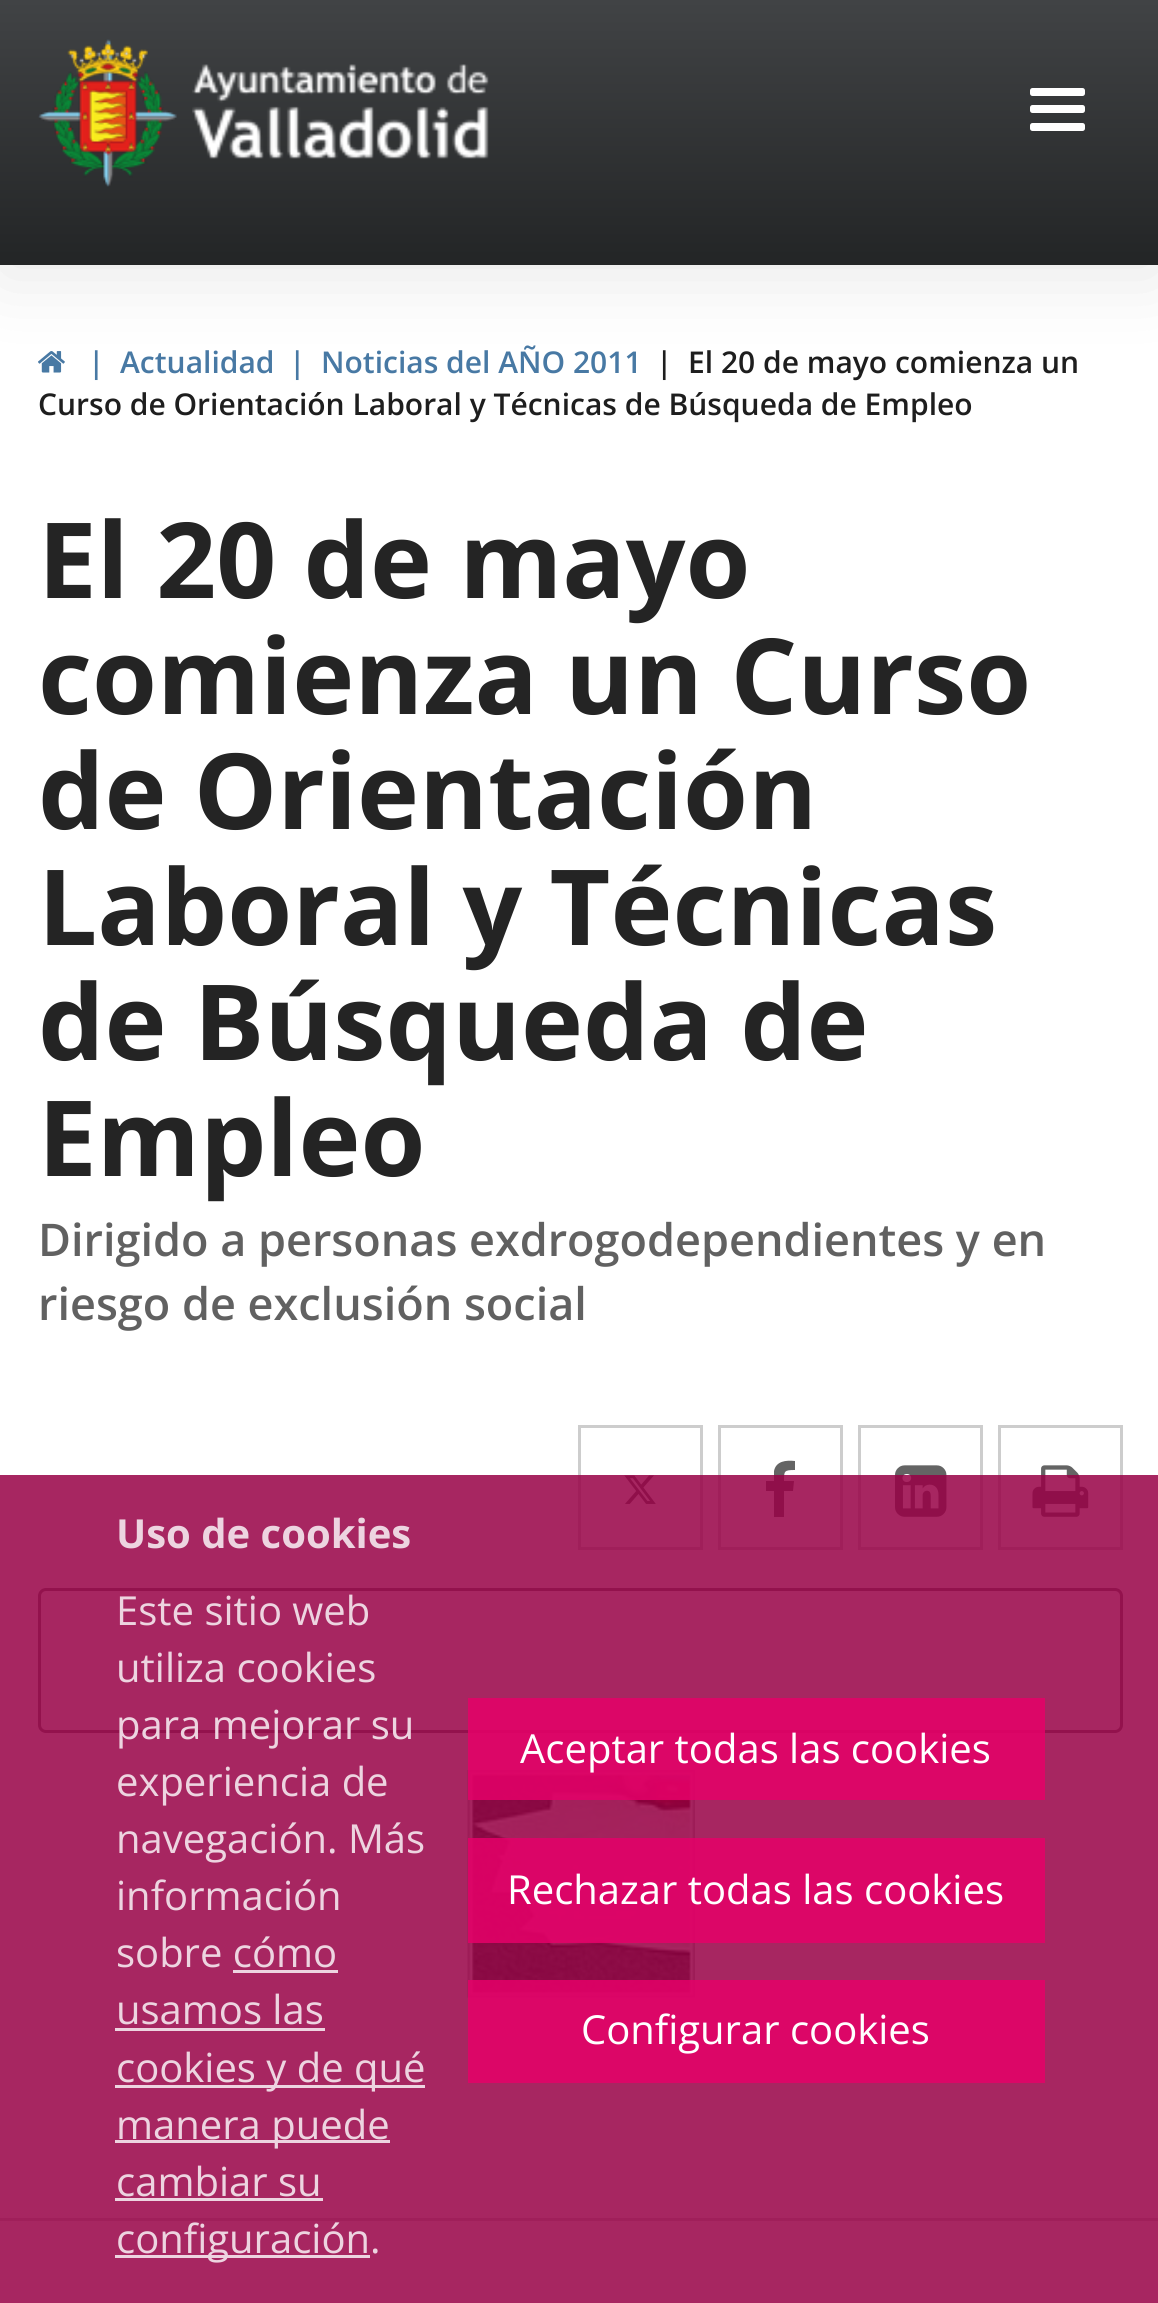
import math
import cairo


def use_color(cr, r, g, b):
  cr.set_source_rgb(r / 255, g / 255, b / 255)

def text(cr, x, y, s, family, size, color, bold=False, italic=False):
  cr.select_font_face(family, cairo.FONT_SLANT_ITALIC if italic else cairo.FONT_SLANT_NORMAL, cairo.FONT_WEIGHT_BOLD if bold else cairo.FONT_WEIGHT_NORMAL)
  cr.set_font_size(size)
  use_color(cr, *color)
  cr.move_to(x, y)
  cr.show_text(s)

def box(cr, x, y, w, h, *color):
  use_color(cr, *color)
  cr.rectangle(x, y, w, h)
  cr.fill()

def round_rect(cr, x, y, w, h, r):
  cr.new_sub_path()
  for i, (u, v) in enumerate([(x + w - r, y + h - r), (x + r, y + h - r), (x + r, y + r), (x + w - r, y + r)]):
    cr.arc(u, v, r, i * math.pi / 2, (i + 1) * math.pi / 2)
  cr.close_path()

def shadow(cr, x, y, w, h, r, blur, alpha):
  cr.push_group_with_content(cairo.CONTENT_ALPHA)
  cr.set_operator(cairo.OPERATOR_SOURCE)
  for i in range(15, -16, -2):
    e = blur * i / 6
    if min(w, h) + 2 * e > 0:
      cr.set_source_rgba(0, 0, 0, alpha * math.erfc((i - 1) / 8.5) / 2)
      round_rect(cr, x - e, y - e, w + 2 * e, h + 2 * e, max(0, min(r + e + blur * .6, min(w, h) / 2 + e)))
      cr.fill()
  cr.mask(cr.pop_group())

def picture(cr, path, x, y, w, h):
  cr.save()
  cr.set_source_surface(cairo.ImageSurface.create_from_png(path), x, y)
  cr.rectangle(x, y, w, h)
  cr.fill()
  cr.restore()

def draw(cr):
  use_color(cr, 255, 255, 255)
  cr.paint()
  use_color(cr, 0, 0, 0)
  shadow(cr, 0, 10, 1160, 265, 0, 37.5, 0.1)
  gradient = cairo.LinearGradient(580, 265, 580, 0)
  gradient.add_color_stop_rgba(0, 0.137, 0.145, 0.149, 1)
  gradient.add_color_stop_rgba(1, 0.255, 0.263, 0.271, 1)
  cr.set_source(gradient)
  cr.rectangle(0, 0, 1158, 265)
  cr.fill()
  picture(cr, "img_01.png", 38, 39, 139, 148)
  picture(cr, "img_02.png", 192, 64, 297, 95)
  use_color(cr, 255, 255, 255)
  round_rect(cr, 1030, 88, 55, 8, 2.5)
  cr.fill()
  round_rect(cr, 1030, 105, 55, 8, 2.5)
  cr.fill()
  round_rect(cr, 1030, 123, 55, 8, 2.5)
  cr.fill()
  picture(cr, "img_03.png", 38, 351, 27, 22)
  cr.rectangle(579.5, 1426.5, 122, 122)
  use_color(cr, 205, 205, 205)
  cr.set_line_width(3)
  cr.stroke()
  picture(cr, "img_04.png", 624, 1475, 32, 29)
  cr.rectangle(719.5, 1426.5, 122, 122)
  cr.stroke()
  use_color(cr, 100, 100, 100)
  cr.new_path()
  cr.move_to(795, 1461)
  cr.line_to(795, 1470)
  cr.curve_to(784, 1470, 784, 1471, 784, 1481)
  cr.line_to(794, 1481)
  cr.line_to(793, 1491)
  cr.line_to(784, 1491)
  cr.line_to(784, 1517)
  cr.line_to(774, 1517)
  cr.line_to(774, 1491)
  cr.line_to(766, 1491)
  cr.line_to(766, 1481)
  cr.line_to(774, 1481)
  cr.line_to(774, 1471)
  cr.curve_to(776, 1461, 786, 1460, 795, 1461)
  cr.close_path()
  cr.fill()
  cr.rectangle(859.5, 1426.5, 122, 122)
  use_color(cr, 205, 205, 205)
  cr.stroke()
  picture(cr, "img_05.png", 895, 1465, 52, 52)
  cr.rectangle(999.5, 1426.5, 122, 122)
  cr.stroke()
  picture(cr, "img_06.png", 1032, 1465, 57, 52)
  round_rect(cr, 39.5, 1589.5, 1082, 142, 6.5)
  use_color(cr, 118, 118, 119)
  cr.stroke()
  picture(cr, "img_07.png", 467, 1770, 228, 228)
  box(cr, 0, 2218, 1158, 3, 210, 210, 210)
  cr.set_source_rgba(0.596, 0, 0.275, 0.85)
  cr.rectangle(0, 1475, 1158, 828)
  cr.fill()
  box(cr, 233, 1970, 105, 3, 237, 212, 224)
  box(cr, 115, 2028, 210, 3, 237, 212, 224)
  box(cr, 115, 2085, 310, 3, 237, 212, 224)
  box(cr, 115, 2140, 275, 3, 237, 212, 224)
  box(cr, 115, 2198, 208, 3, 237, 212, 224)
  box(cr, 115, 2255, 255, 3, 237, 212, 224)
  cr.set_source_rgba(0.898, 0, 0.412, 0.85)
  cr.rectangle(468, 1698, 577, 102)
  cr.fill()
  cr.rectangle(468, 1838, 577, 105)
  cr.fill()
  cr.rectangle(468, 1980, 577, 103)
  cr.fill()
  text(cr, 88, 373, "|", "Open Sans SemiBold", 30, (72, 121, 164))
  text(cr, 120, 373, "Actualidad", "Open Sans SemiBold", 30, (72, 121, 164))
  text(cr, 289, 373, "|", "Open Sans SemiBold", 30, (72, 121, 164))
  text(cr, 321, 373, "Noticias del AÑO 2011", "Open Sans SemiBold", 30, (72, 121, 164))
  text(cr, 656, 373, "|", "Open Sans SemiBold", 30, (30, 30, 30))
  text(cr, 688, 373, "El 20 de mayo comienza un", "Open Sans SemiBold", 30, (30, 30, 30))
  text(cr, 38, 415, "Curso de Orientación Laboral y Técnicas de Búsqueda de Empleo", "Open Sans SemiBold", 30, (30, 30, 30))
  text(cr, 38, 598, "El 20 de mayo", "Open Sans", 105, (36, 36, 36), bold=True)
  text(cr, 38, 714, "comienza un Curso", "Open Sans", 105, (36, 36, 36), bold=True)
  text(cr, 38, 829, "de Orientación", "Open Sans", 105, (36, 36, 36), bold=True)
  text(cr, 38, 945, "Laboral y Técnicas", "Open Sans", 105, (36, 36, 36), bold=True)
  text(cr, 38, 1060, "de Búsqueda de", "Open Sans", 105, (36, 36, 36), bold=True)
  text(cr, 38, 1176, "Empleo", "Open Sans", 105, (36, 36, 36), bold=True)
  text(cr, 38, 1256, "Dirigido a personas exdrogodependientes y en", "Open Sans SemiBold", 45, (97, 97, 97))
  text(cr, 38, 1320, "riesgo de exclusión social", "Open Sans SemiBold", 45, (97, 97, 97))
  text(cr, 116, 1548, "Uso de cookies", "Open Sans", 40, (237, 212, 224), bold=True)
  text(cr, 116, 1625, "Este sitio web", "Open Sans", 40, (237, 212, 224))
  text(cr, 116, 1682, "utiliza cookies", "Open Sans", 40, (237, 212, 224))
  text(cr, 116, 1739, "para mejorar su", "Open Sans", 40, (237, 212, 224))
  text(cr, 116, 1796, "experiencia de", "Open Sans", 40, (237, 212, 224))
  text(cr, 116, 1853, "navegación. Más", "Open Sans", 40, (237, 212, 224))
  text(cr, 116, 1910, "información", "Open Sans", 40, (237, 212, 224))
  text(cr, 116, 1967, "sobre cómo", "Open Sans", 40, (237, 212, 224))
  text(cr, 116, 2024, "usamos las", "Open Sans", 40, (237, 212, 224))
  text(cr, 116, 2082, "cookies y de qué", "Open Sans", 40, (237, 212, 224))
  text(cr, 116, 2139, "manera puede", "Open Sans", 40, (237, 212, 224))
  text(cr, 116, 2196, "cambiar su", "Open Sans", 40, (237, 212, 224))
  text(cr, 116, 2253, "configuración", "Open Sans", 40, (237, 212, 224))
  text(cr, 370, 2253, ".", "Open Sans", 40, (237, 212, 224))
  text(cr, 520, 1763, "Aceptar todas las cookies", "Open Sans", 40, (255, 255, 255))
  text(cr, 507, 1904, "Rechazar todas las cookies", "Open Sans", 40, (255, 255, 255))
  text(cr, 581, 2044, "Configurar cookies", "Open Sans", 40, (255, 255, 255))


surface = cairo.ImageSurface(cairo.FORMAT_RGB24, 1158, 2303)
cr = cairo.Context(surface)
options = cairo.FontOptions()
options.set_hint_metrics(cairo.HINT_METRICS_OFF)
options.set_hint_style(cairo.HINT_STYLE_NONE)
cr.set_font_options(options)
cr.set_miter_limit(4)
draw(cr)
surface.write_to_png("out.png")
